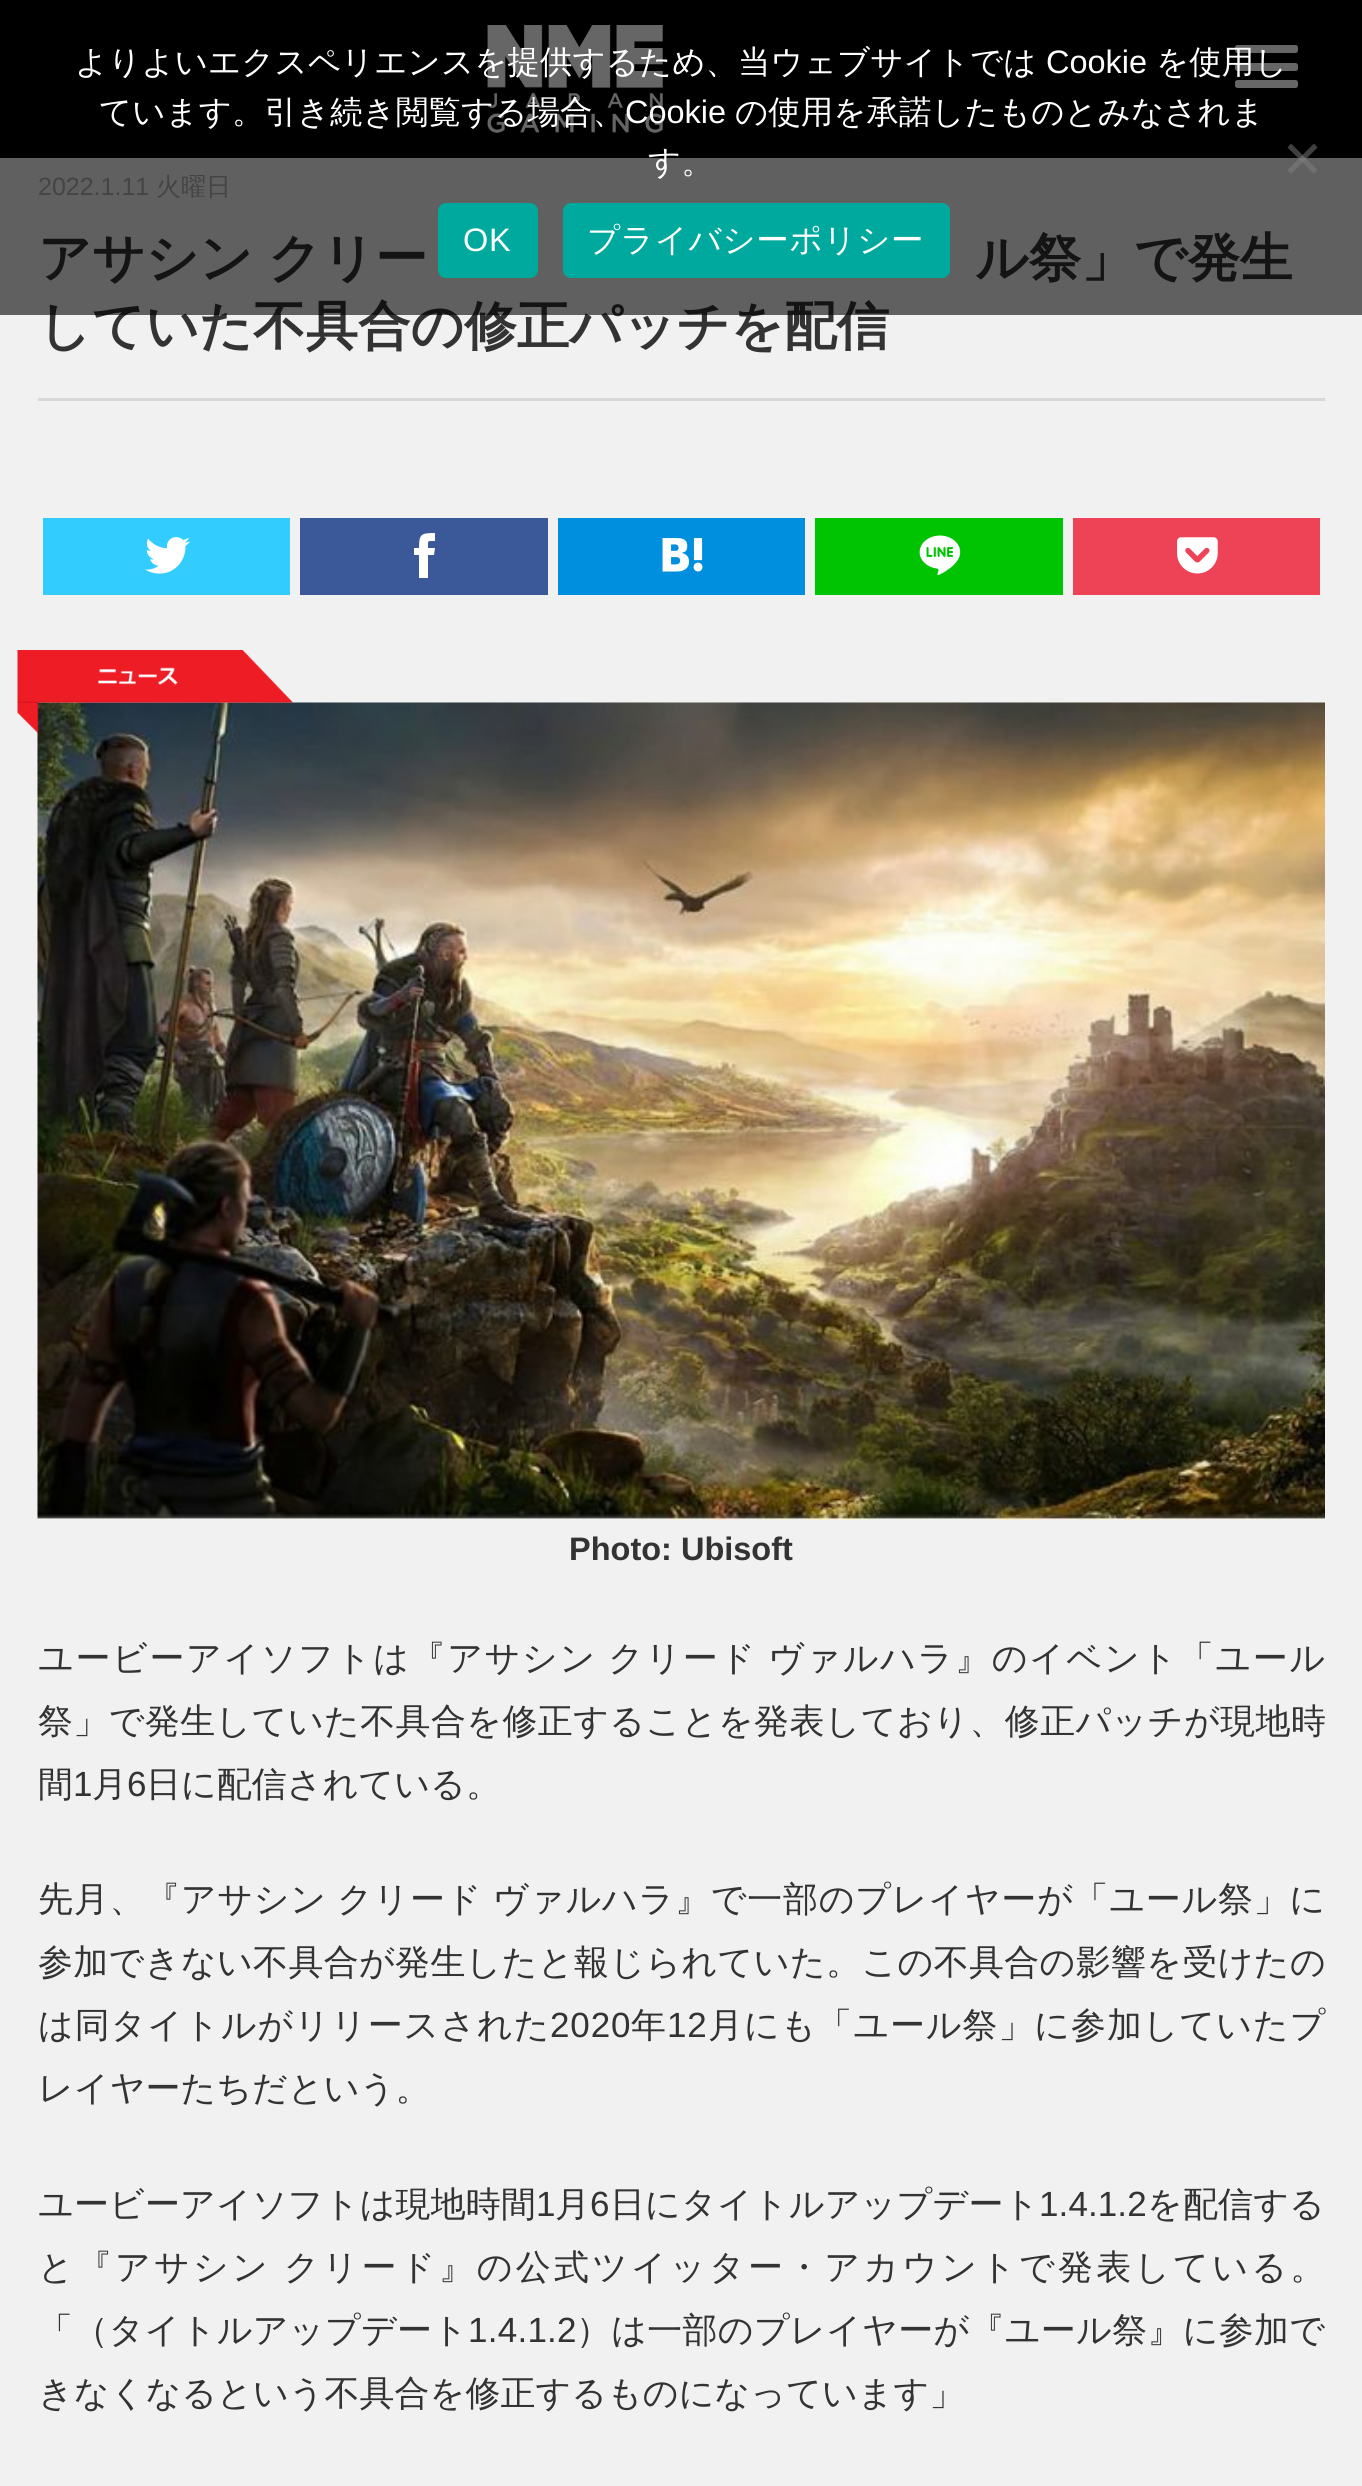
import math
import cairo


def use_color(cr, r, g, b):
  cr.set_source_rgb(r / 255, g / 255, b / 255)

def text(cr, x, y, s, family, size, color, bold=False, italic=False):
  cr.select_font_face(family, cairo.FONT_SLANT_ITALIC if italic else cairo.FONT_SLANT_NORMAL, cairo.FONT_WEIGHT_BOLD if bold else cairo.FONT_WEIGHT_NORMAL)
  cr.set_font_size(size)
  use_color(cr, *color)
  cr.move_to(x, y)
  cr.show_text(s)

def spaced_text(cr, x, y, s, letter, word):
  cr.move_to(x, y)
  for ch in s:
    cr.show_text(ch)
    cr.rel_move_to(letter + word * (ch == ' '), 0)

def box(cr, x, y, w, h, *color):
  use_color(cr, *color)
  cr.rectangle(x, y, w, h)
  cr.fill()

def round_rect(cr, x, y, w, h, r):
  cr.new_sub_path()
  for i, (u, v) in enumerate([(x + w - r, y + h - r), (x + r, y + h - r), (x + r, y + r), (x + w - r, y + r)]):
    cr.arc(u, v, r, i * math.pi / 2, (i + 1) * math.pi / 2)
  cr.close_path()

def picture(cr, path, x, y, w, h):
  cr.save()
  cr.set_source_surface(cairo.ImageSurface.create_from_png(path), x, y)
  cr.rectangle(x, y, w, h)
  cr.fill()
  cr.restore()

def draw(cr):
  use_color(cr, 241, 241, 241)
  cr.paint()
  box(cr, 0, 0, 1362, 158, 0, 0, 0)
  use_color(cr, 255, 255, 255)
  round_rect(cr, 1235, 45, 63, 8, 2.5)
  cr.fill()
  round_rect(cr, 1235, 63, 63, 8, 2.5)
  cr.fill()
  round_rect(cr, 1235, 80, 63, 8, 2.5)
  cr.fill()
  picture(cr, "img_01.png", 487, 25, 176, 108)
  box(cr, 38, 398, 1287, 3, 216, 216, 216)
  box(cr, 43, 518, 247, 77, 51, 204, 255)
  picture(cr, "img_02.png", 145, 537, 45, 37)
  box(cr, 300, 518, 248, 77, 59, 89, 152)
  use_color(cr, 255, 255, 255)
  cr.new_path()
  cr.move_to(428, 578)
  cr.line_to(419, 578)
  cr.line_to(419, 555)
  cr.line_to(414, 555)
  cr.line_to(414, 548)
  cr.line_to(419, 548)
  cr.curve_to(419, 534, 421, 533, 435, 533)
  cr.line_to(435, 541)
  cr.curve_to(427, 541, 428, 540, 428, 548)
  cr.line_to(435, 548)
  cr.line_to(434, 555)
  cr.line_to(428, 555)
  cr.close_path()
  cr.fill()
  box(cr, 558, 518, 247, 77, 0, 143, 222)
  picture(cr, "img_03.png", 662, 538, 41, 34)
  box(cr, 815, 518, 248, 77, 0, 196, 2)
  picture(cr, "img_04.png", 919, 535, 42, 40)
  box(cr, 1073, 518, 247, 77, 238, 66, 87)
  picture(cr, "img_05.png", 1177, 537, 41, 37)
  picture(cr, "img_07.png", 37, 702, 1288, 818)
  picture(cr, "img_06.png", 17, 650, 276, 83)
  text(cr, 38, 195, "2022.1.11", "Liberation Sans", 25, (170, 170, 170))
  text(cr, 156, 195, "火曜日", "WenQuanYi Zen Hei Medium", 25, (170, 170, 170))
  cr.select_font_face("WenQuanYi Zen Hei", cairo.FONT_SLANT_NORMAL, cairo.FONT_WEIGHT_BOLD)
  cr.set_font_size(52.5)
  use_color(cr, 51, 51, 51)
  spaced_text(cr, 38, 276, "アサシン クリー", 0, -1)
  spaced_text(cr, 975, 276, "ル祭」で発生", 0, -1)
  text(cr, 38, 344, "していた不具合の修正パッチを配信", "WenQuanYi Zen Hei", 52.5, (51, 51, 51), bold=True)
  cr.set_source_rgba(0, 0, 0, 0.6)
  cr.rectangle(0, 25, 1362, 290)
  cr.fill()
  cr.set_source_rgba(0.502, 0.502, 0.502, 0.5)
  cr.new_path()
  cr.move_to(1314, 143.5)
  cr.line_to(1317.5, 147.5)
  cr.line_to(1291, 174)
  cr.line_to(1287.5, 170)
  cr.close_path()
  cr.fill()
  cr.new_path()
  cr.move_to(1287.5, 147.5)
  cr.line_to(1291, 143.5)
  cr.line_to(1317.5, 170)
  cr.line_to(1314, 174)
  cr.close_path()
  cr.fill()
  use_color(cr, 0, 169, 157)
  round_rect(cr, 563, 203, 387, 75, 8)
  cr.fill()
  cr.select_font_face("WenQuanYi Zen Hei Medium")
  cr.set_font_size(32.5)
  use_color(cr, 255, 255, 255)
  spaced_text(cr, 587, 251, "プライバシーポリシー", 0.6, 0)
  use_color(cr, 0, 169, 157)
  round_rect(cr, 438, 203, 100, 75, 8)
  cr.fill()
  cr.select_font_face("Liberation Sans")
  use_color(cr, 255, 255, 255)
  spaced_text(cr, 463, 251, "OK", 0.6, 0)
  text(cr, 648, 173, "す。", "WenQuanYi Zen Hei Medium", 32.5, (255, 255, 255))
  text(cr, 735, 123, "の使用を承諾したものとみなされま", "WenQuanYi Zen Hei Medium", 32.5, (255, 255, 255))
  text(cr, 625, 123, "Cookie", "Liberation Sans", 32.5, (255, 255, 255))
  text(cr, 99, 123, "ています。引き続き閲覧する場合、", "WenQuanYi Zen Hei Medium", 32.5, (255, 255, 255))
  text(cr, 1156, 73, "を使用し", "WenQuanYi Zen Hei Medium", 32.5, (255, 255, 255))
  text(cr, 1046, 73, "Cookie", "Liberation Sans", 32.5, (255, 255, 255))
  text(cr, 75, 73, "よりよいエクスペリエンスを提供するため、当ウェブサイトでは", "WenQuanYi Zen Hei Medium", 32.5, (255, 255, 255))
  text(cr, 569, 1560, "Photo: Ubisoft", "Liberation Sans", 32.5, (51, 51, 51), bold=True)
  cr.select_font_face("WenQuanYi Zen Hei Medium")
  cr.set_font_size(35)
  spaced_text(cr, 38, 1670, "ユービーアイソフトは『アサシン クリード ヴァルハラ』のイベント「ユール", 1.6, -1)
  spaced_text(cr, 38, 1733, "祭」で発生していた不具合を修正することを発表しており、修正パッチが現地時", 0.35, 0)
  text(cr, 38, 1796, "間", "WenQuanYi Zen Hei Medium", 35, (51, 51, 51))
  text(cr, 73, 1796, "1", "Liberation Sans", 35, (51, 51, 51))
  text(cr, 92, 1796, "月", "WenQuanYi Zen Hei Medium", 35, (51, 51, 51))
  text(cr, 127, 1796, "6", "Liberation Sans", 35, (51, 51, 51))
  text(cr, 146, 1796, "日に配信されている。", "WenQuanYi Zen Hei Medium", 35, (51, 51, 51))
  spaced_text(cr, 38, 1911, "先月、『アサシン クリード ヴァルハラ』で一部のプレイヤーが「ユール祭」に", 0.7, -1)
  spaced_text(cr, 38, 1974, "参加できない不具合が発生したと報じられていた。この不具合の影響を受けたの", 0.3, 0)
  spaced_text(cr, 38, 2037, "は同タイトルがリリースされた", 0.9, 0)
  cr.select_font_face("Liberation Sans")
  spaced_text(cr, 550, 2037, "2020", 0.9, 0)
  cr.select_font_face("WenQuanYi Zen Hei Medium")
  spaced_text(cr, 631, 2037, "年", 0.9, 0)
  cr.select_font_face("Liberation Sans")
  spaced_text(cr, 667, 2037, "12", 0.9, 0)
  cr.select_font_face("WenQuanYi Zen Hei Medium")
  spaced_text(cr, 708, 2037, "月にも「ユール祭」に参加していたプ", 0.9, 0)
  text(cr, 38, 2100, "レイヤーたちだという。", "WenQuanYi Zen Hei Medium", 35, (51, 51, 51))
  spaced_text(cr, 38, 2216, "ユービーアイソフトは現地時間", 0.1, 0)
  cr.select_font_face("Liberation Sans")
  spaced_text(cr, 536, 2216, "1", 0.1, 0)
  cr.select_font_face("WenQuanYi Zen Hei Medium")
  spaced_text(cr, 555, 2216, "月", 0.1, 0)
  cr.select_font_face("Liberation Sans")
  spaced_text(cr, 590, 2216, "6", 0.1, 0)
  cr.select_font_face("WenQuanYi Zen Hei Medium")
  spaced_text(cr, 610, 2216, "日にタイトルアップデート", 0.1, 0)
  cr.select_font_face("Liberation Sans")
  spaced_text(cr, 1039, 2216, "1.4.1.2", 0.1, 0)
  cr.select_font_face("WenQuanYi Zen Hei Medium")
  spaced_text(cr, 1147, 2216, "を配信する", 0.1, 0)
  spaced_text(cr, 38, 2279, "と『アサシン クリード』の公式ツイッター・アカウントで発表している。", 3.15, -1)
  spaced_text(cr, 38, 2342, "「（タイトルアップデート", 0.25, 0)
  cr.select_font_face("Liberation Sans")
  spaced_text(cr, 468, 2342, "1.4.1.2", 0.25, 0)
  cr.select_font_face("WenQuanYi Zen Hei Medium")
  spaced_text(cr, 576, 2342, "）は一部のプレイヤーが『ユール祭』に参加で", 0.25, 0)
  text(cr, 38, 2405, "きなくなるという不具合を修正するものになっています」", "WenQuanYi Zen Hei Medium", 35, (51, 51, 51))


surface = cairo.ImageSurface(cairo.FORMAT_RGB24, 1362, 2486)
cr = cairo.Context(surface)
options = cairo.FontOptions()
options.set_hint_metrics(cairo.HINT_METRICS_OFF)
options.set_hint_style(cairo.HINT_STYLE_NONE)
cr.set_font_options(options)
cr.set_miter_limit(4)
draw(cr)
surface.write_to_png("out.png")
